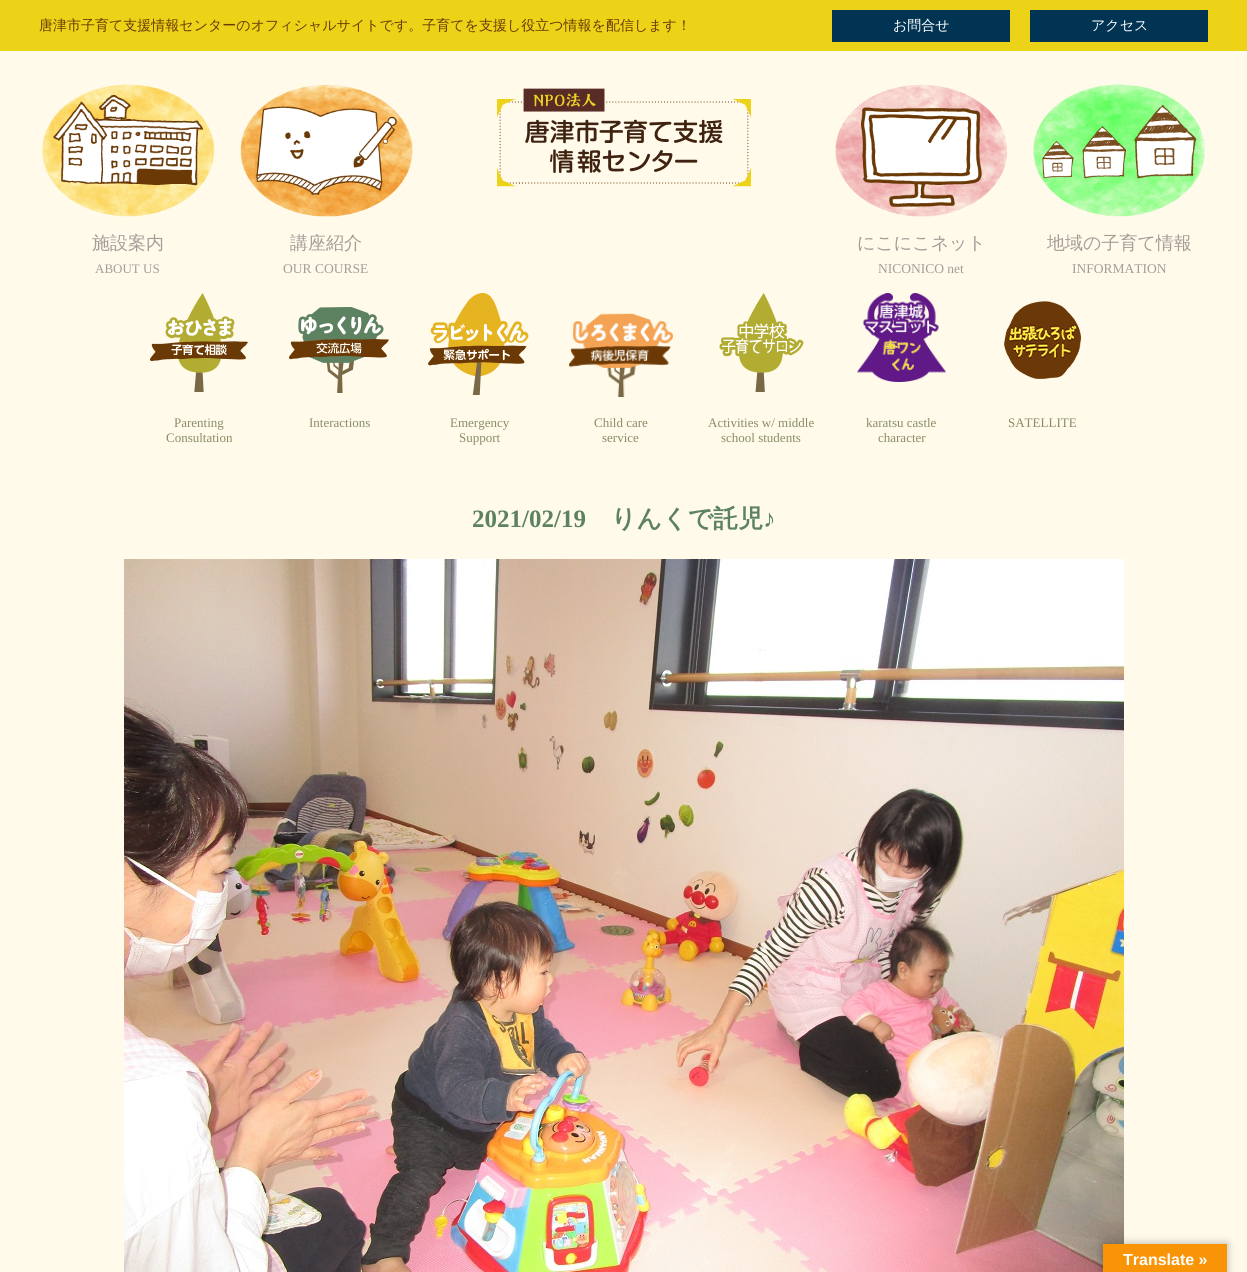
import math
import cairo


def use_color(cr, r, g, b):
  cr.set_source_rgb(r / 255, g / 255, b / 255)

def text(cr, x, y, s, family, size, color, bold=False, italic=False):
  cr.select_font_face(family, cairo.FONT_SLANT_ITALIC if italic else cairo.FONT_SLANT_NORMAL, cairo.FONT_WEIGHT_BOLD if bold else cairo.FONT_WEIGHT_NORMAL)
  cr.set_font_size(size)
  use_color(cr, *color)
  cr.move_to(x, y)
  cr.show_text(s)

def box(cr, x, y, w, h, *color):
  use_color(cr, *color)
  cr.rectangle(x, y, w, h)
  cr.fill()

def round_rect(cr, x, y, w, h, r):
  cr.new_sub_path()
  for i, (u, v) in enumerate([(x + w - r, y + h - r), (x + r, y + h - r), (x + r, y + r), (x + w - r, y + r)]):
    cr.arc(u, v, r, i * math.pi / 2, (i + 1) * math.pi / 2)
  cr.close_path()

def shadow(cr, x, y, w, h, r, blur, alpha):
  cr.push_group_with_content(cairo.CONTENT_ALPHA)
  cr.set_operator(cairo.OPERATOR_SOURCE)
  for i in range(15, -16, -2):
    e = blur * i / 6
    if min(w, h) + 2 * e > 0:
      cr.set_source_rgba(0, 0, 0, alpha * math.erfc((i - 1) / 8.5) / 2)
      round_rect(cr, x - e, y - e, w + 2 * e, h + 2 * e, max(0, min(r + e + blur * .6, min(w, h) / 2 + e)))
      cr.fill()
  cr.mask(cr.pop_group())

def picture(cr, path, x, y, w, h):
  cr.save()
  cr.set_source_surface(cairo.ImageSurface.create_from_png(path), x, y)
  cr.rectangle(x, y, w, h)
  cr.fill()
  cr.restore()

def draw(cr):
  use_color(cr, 255, 250, 234)
  cr.paint()
  box(cr, 0, 0, 1247, 51, 236, 211, 24)
  box(cr, 832, 10, 178, 32, 1, 52, 83)
  box(cr, 1030, 10, 178, 32, 1, 52, 83)
  picture(cr, "img_01.png", 497, 88, 254, 99)
  picture(cr, "img_02.png", 42, 84, 173, 133)
  picture(cr, "img_03.png", 240, 84, 173, 133)
  picture(cr, "img_04.png", 835, 84, 173, 133)
  picture(cr, "img_05.png", 1033, 84, 173, 133)
  picture(cr, "img_06.png", 150, 293, 98, 99)
  picture(cr, "img_07.png", 289, 307, 100, 86)
  picture(cr, "img_08.png", 428, 293, 101, 102)
  picture(cr, "img_09.png", 569, 313, 104, 84)
  picture(cr, "img_10.png", 719, 293, 85, 99)
  picture(cr, "img_11.png", 857, 293, 89, 89)
  picture(cr, "img_12.png", 1004, 301, 77, 78)
  picture(cr, "img_13.png", 124, 559, 1000, 713)
  use_color(cr, 0, 0, 0)
  shadow(cr, 1103, 1244, 124, 28, 0, 4.5, 0.3)
  box(cr, 1103, 1244, 124, 28, 248, 148, 6)
  text(cr, 39, 30, "唐津市子育て支援情報センターのオフィシャルサイトです。子育てを支援し役立つ情報を配信します！", "WenQuanYi Zen Hei Medium", 14, (106, 57, 6))
  text(cr, 893, 30, "お問合せ", "WenQuanYi Zen Hei Medium", 14, (255, 255, 255))
  text(cr, 1091, 30, "アクセス", "WenQuanYi Zen Hei Medium", 14, (255, 255, 255))
  text(cr, 92, 249, "施設案内", "WenQuanYi Zen Hei Medium", 18, (165, 156, 152))
  text(cr, 95, 273, "ABOUT US", "Liberation Serif", 13, (165, 156, 152))
  text(cr, 290, 249, "講座紹介", "WenQuanYi Zen Hei Medium", 18, (165, 156, 152))
  text(cr, 283, 273, "OUR COURSE", "Liberation Serif", 13.5, (165, 156, 152))
  text(cr, 857, 249, "にこにこネット", "WenQuanYi Zen Hei Medium", 18, (165, 156, 152))
  text(cr, 878, 273, "NICONICO net", "Liberation Serif", 13.5, (165, 156, 152))
  text(cr, 1047, 249, "地域の子育て情報", "WenQuanYi Zen Hei Medium", 18, (165, 156, 152))
  text(cr, 1072, 273, "INFORMATION", "Liberation Serif", 13.5, (165, 156, 152))
  text(cr, 174, 427, "Parenting", "Liberation Serif", 13, (135, 142, 102))
  text(cr, 166, 442, "Consultation", "Liberation Serif", 13, (135, 142, 102))
  text(cr, 309, 427, "Interactions", "Liberation Serif", 13, (135, 142, 102))
  text(cr, 450, 427, "Emergency", "Liberation Serif", 13, (135, 142, 102))
  text(cr, 459, 442, "Support", "Liberation Serif", 13, (135, 142, 102))
  text(cr, 594, 427, "Child care", "Liberation Serif", 13, (135, 142, 102))
  text(cr, 602, 442, "service", "Liberation Serif", 13, (135, 142, 102))
  text(cr, 708, 427, "Activities w/ middle", "Liberation Serif", 13, (135, 142, 102))
  text(cr, 721, 442, "school students", "Liberation Serif", 13, (135, 142, 102))
  text(cr, 866, 427, "karatsu castle", "Liberation Serif", 13, (135, 142, 102))
  text(cr, 878, 442, "character", "Liberation Serif", 13, (135, 142, 102))
  text(cr, 1008, 427, "SATELLITE", "Liberation Serif", 13, (135, 142, 102))
  text(cr, 472, 527, "2021/02/19", "Liberation Serif", 25, (92, 130, 97), bold=True)
  text(cr, 611, 527, "りんくで託児", "WenQuanYi Zen Hei", 25, (92, 130, 97), bold=True)
  text(cr, 763, 527, "♪", "Liberation Serif", 25, (92, 130, 97), bold=True)
  text(cr, 1123, 1265, "Translate »", "Liberation Sans", 16, (255, 255, 255), bold=True)


surface = cairo.ImageSurface(cairo.FORMAT_RGB24, 1247, 1272)
cr = cairo.Context(surface)
options = cairo.FontOptions()
options.set_hint_metrics(cairo.HINT_METRICS_OFF)
options.set_hint_style(cairo.HINT_STYLE_NONE)
cr.set_font_options(options)
cr.set_miter_limit(4)
draw(cr)
surface.write_to_png("out.png")
